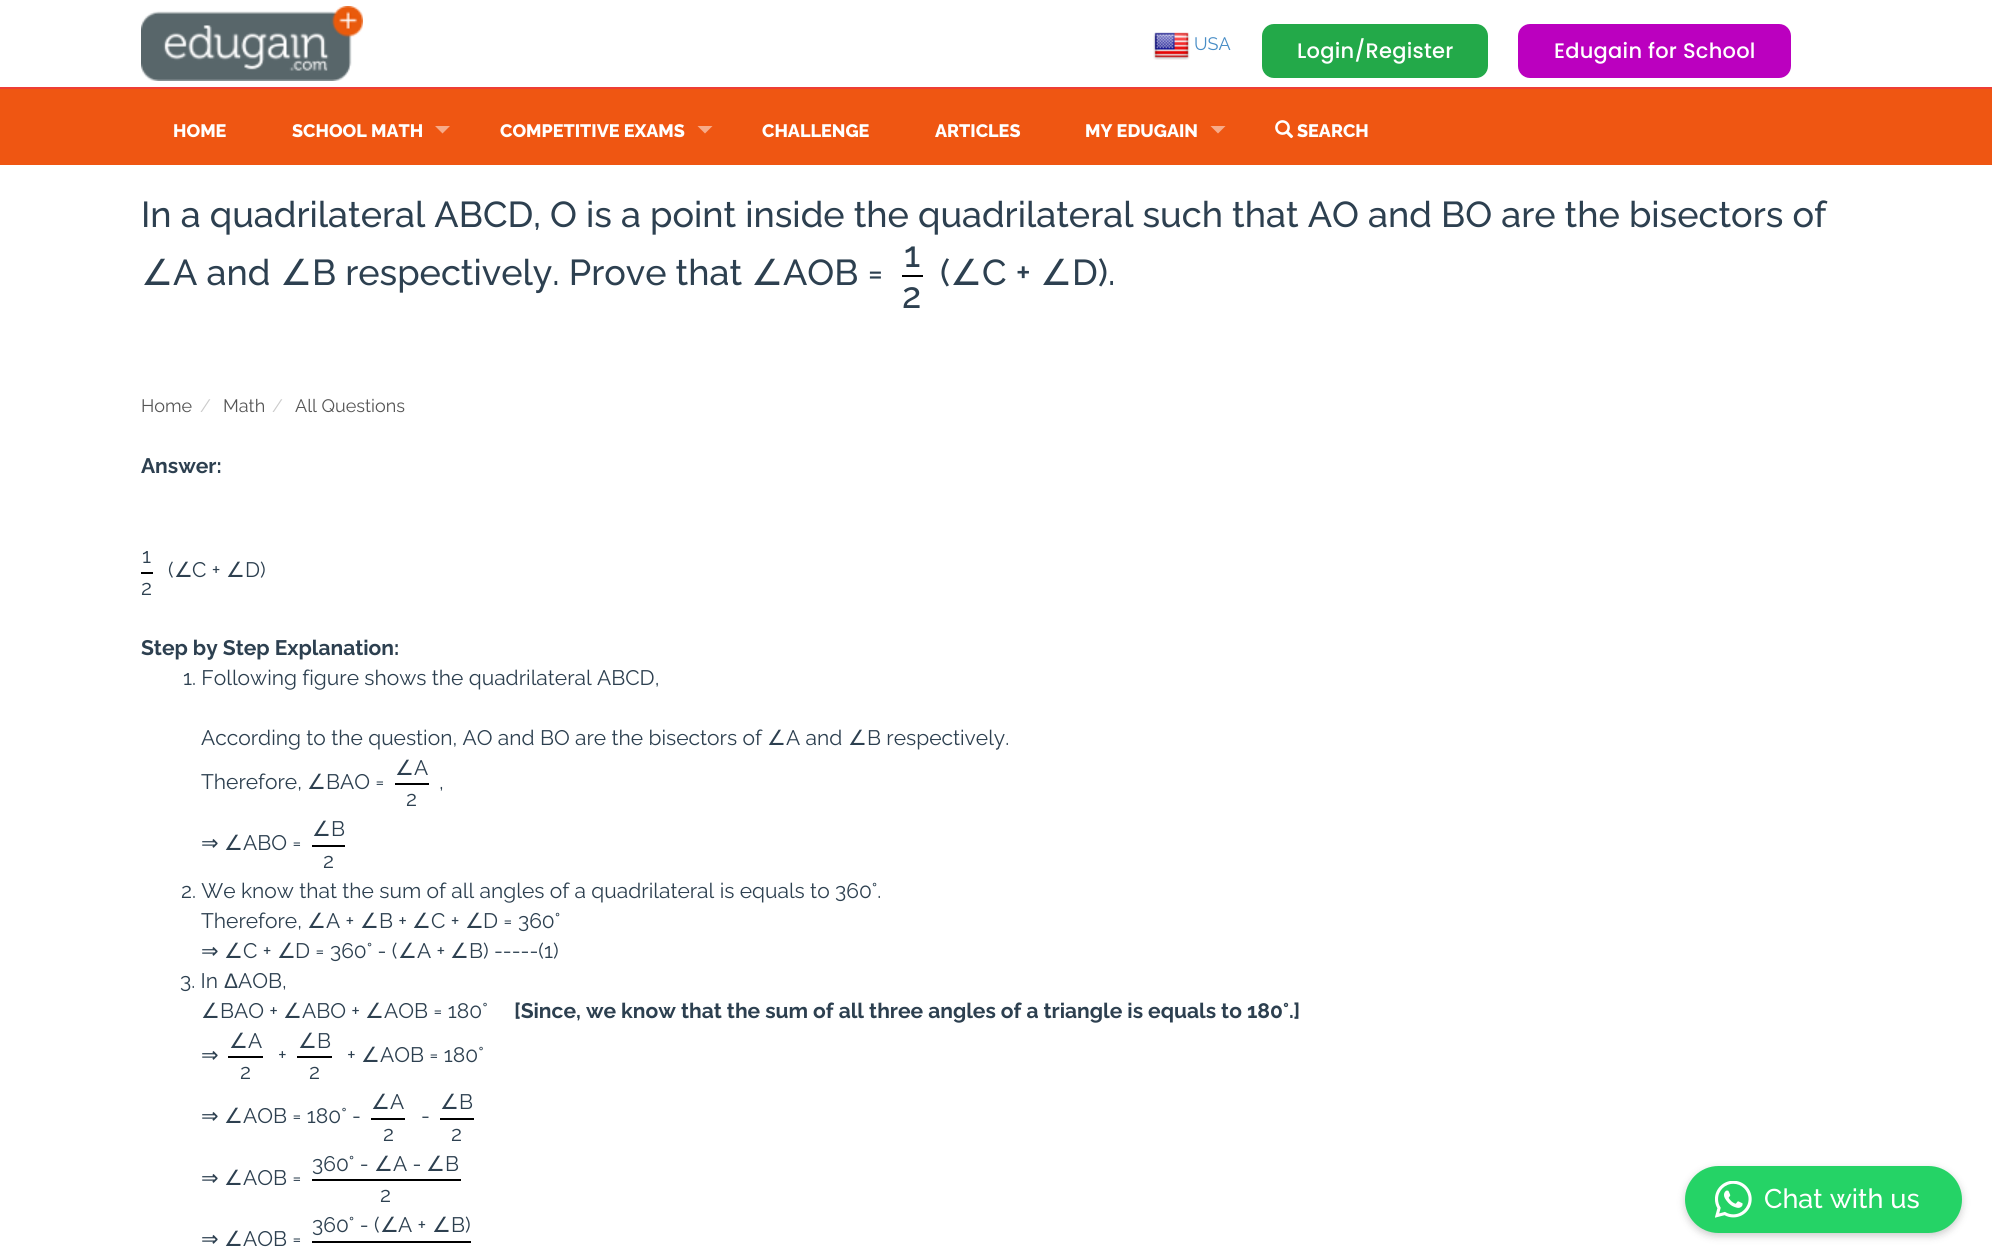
import math
import cairo


def use_color(cr, r, g, b):
  cr.set_source_rgb(r / 255, g / 255, b / 255)

def text(cr, x, y, s, family, size, color, bold=False, italic=False):
  cr.select_font_face(family, cairo.FONT_SLANT_ITALIC if italic else cairo.FONT_SLANT_NORMAL, cairo.FONT_WEIGHT_BOLD if bold else cairo.FONT_WEIGHT_NORMAL)
  cr.set_font_size(size)
  use_color(cr, *color)
  cr.move_to(x, y)
  cr.show_text(s)

def spaced_text(cr, x, y, s, letter, word):
  cr.move_to(x, y)
  for ch in s:
    cr.show_text(ch)
    cr.rel_move_to(letter + word * (ch == ' '), 0)

def box(cr, x, y, w, h, *color):
  use_color(cr, *color)
  cr.rectangle(x, y, w, h)
  cr.fill()

def round_rect(cr, x, y, w, h, r):
  cr.new_sub_path()
  for i, (u, v) in enumerate([(x + w - r, y + h - r), (x + r, y + h - r), (x + r, y + r), (x + w - r, y + r)]):
    cr.arc(u, v, r, i * math.pi / 2, (i + 1) * math.pi / 2)
  cr.close_path()

def shadow(cr, x, y, w, h, r, blur, alpha):
  cr.push_group_with_content(cairo.CONTENT_ALPHA)
  cr.set_operator(cairo.OPERATOR_SOURCE)
  for i in range(15, -16, -2):
    e = blur * i / 6
    if min(w, h) + 2 * e > 0:
      cr.set_source_rgba(0, 0, 0, alpha * math.erfc((i - 1) / 8.5) / 2)
      round_rect(cr, x - e, y - e, w + 2 * e, h + 2 * e, max(0, min(r + e + blur * .6, min(w, h) / 2 + e)))
      cr.fill()
  cr.mask(cr.pop_group())

def picture(cr, path, x, y, w, h):
  cr.save()
  cr.set_source_surface(cairo.ImageSurface.create_from_png(path), x, y)
  cr.rectangle(x, y, w, h)
  cr.fill()
  cr.restore()

def draw(cr):
  use_color(cr, 255, 255, 255)
  cr.paint()
  box(cr, 0, 87, 1992, 2, 238, 62, 53)
  picture(cr, "img_01.png", 141, 6, 222, 75)
  picture(cr, "img_02.png", 1153, 32, 37, 28)
  use_color(cr, 35, 169, 73)
  round_rect(cr, 1262, 24, 226, 54, 12)
  cr.fill()
  use_color(cr, 187, 0, 191)
  round_rect(cr, 1518, 24, 273, 54, 12)
  cr.fill()
  box(cr, 0, 89, 1992, 76, 239, 86, 18)
  use_color(cr, 247, 171, 137)
  cr.new_path()
  cr.move_to(435, 126)
  cr.line_to(450, 126)
  cr.line_to(442.5, 133.5)
  cr.close_path()
  cr.fill()
  cr.new_path()
  cr.move_to(697.5, 126)
  cr.line_to(712.5, 126)
  cr.line_to(705, 133.5)
  cr.close_path()
  cr.fill()
  cr.new_path()
  cr.move_to(1210.5, 126)
  cr.line_to(1225.5, 126)
  cr.line_to(1218, 133.5)
  cr.close_path()
  cr.fill()
  picture(cr, "img_03.png", 1275, 120, 19, 19)
  box(cr, 902, 275, 21, 2, 0, 0, 0)
  box(cr, 141, 572, 12, 2, 0, 0, 0)
  box(cr, 395, 783, 34, 2, 0, 0, 0)
  box(cr, 312, 845, 33, 2, 0, 0, 0)
  box(cr, 228, 1056, 35, 2, 0, 0, 0)
  box(cr, 297, 1056, 35, 2, 0, 0, 0)
  box(cr, 371, 1118, 34, 2, 0, 0, 0)
  box(cr, 440, 1118, 34, 2, 0, 0, 0)
  box(cr, 312, 1179, 149, 2, 0, 0, 0)
  box(cr, 312, 1241, 159, 2, 0, 0, 0)
  use_color(cr, 0, 0, 0)
  shadow(cr, 1685, 1169, 277, 67, 33.5, 4, 0.2)
  use_color(cr, 37, 211, 102)
  round_rect(cr, 1685, 1166, 277, 67, 33.5)
  cr.fill()
  picture(cr, "img_04.png", 1715, 1181, 37, 37)
  text(cr, 1194, 50, "USA", "Raleway", 18, (72, 141, 198))
  cr.select_font_face("Poppins Medium")
  cr.set_font_size(21)
  use_color(cr, 255, 255, 255)
  spaced_text(cr, 1297, 58, "Login/Register", 0.25, 0)
  spaced_text(cr, 1554, 58, "Edugain for School", 0.25, 0)
  text(cr, 173, 137, "HOME", "Raleway ExtraBold", 18, (255, 255, 255))
  text(cr, 292, 137, "SCHOOL MATH", "Raleway ExtraBold", 18, (255, 255, 255))
  text(cr, 500, 137, "COMPETITIVE EXAMS", "Raleway ExtraBold", 18, (255, 255, 255))
  text(cr, 762, 137, "CHALLENGE", "Raleway ExtraBold", 18, (255, 255, 255))
  text(cr, 935, 137, "ARTICLES", "Raleway ExtraBold", 18, (255, 255, 255))
  text(cr, 1085, 137, "MY EDUGAIN", "Raleway ExtraBold", 18, (255, 255, 255))
  text(cr, 1297, 137, "SEARCH", "Raleway ExtraBold", 18, (255, 255, 255))
  text(cr, 141, 227, "In a quadrilateral ABCD, O is a point inside the quadrilateral such that AO and BO are the bisectors of", "Raleway Medium", 36, (45, 64, 80))
  text(cr, 141, 285, "∠", "DejaVu Sans", 36, (45, 64, 80))
  text(cr, 173, 285, "A and", "Raleway Medium", 36, (45, 64, 80))
  text(cr, 280, 285, "∠", "DejaVu Sans", 36, (45, 64, 80))
  text(cr, 312, 285, "B respectively. Prove that", "Raleway Medium", 36, (45, 64, 80))
  text(cr, 751, 285, "∠", "DejaVu Sans", 36, (45, 64, 80))
  text(cr, 783, 285, "AOB =", "Raleway Medium", 36, (45, 64, 80))
  text(cr, 904, 267, "1", "Raleway Medium", 36, (45, 64, 80))
  text(cr, 902, 308, "2", "Raleway Medium", 36, (45, 64, 80))
  text(cr, 940, 285, "(", "Raleway Medium", 36, (45, 64, 80))
  text(cr, 950, 285, "∠", "DejaVu Sans", 36, (45, 64, 80))
  text(cr, 982, 285, "C +", "Raleway Medium", 36, (45, 64, 80))
  text(cr, 1040, 285, "∠", "DejaVu Sans", 36, (45, 64, 80))
  text(cr, 1072, 285, "D).", "Raleway Medium", 36, (45, 64, 80))
  text(cr, 141, 412, "Home", "Raleway", 18, (85, 85, 85))
  text(cr, 200, 412, "/", "Raleway", 18, (204, 204, 204))
  text(cr, 223, 412, "Math", "Raleway", 18, (85, 85, 85))
  text(cr, 272, 412, "/", "Raleway", 18, (204, 204, 204))
  text(cr, 295, 412, "All Questions", "Raleway", 18, (85, 85, 85))
  text(cr, 141, 473, "Answer:", "Raleway", 21, (45, 64, 80), bold=True)
  text(cr, 142, 563, "1", "Raleway", 21, (45, 64, 80))
  text(cr, 141, 595, "2", "Raleway", 21, (45, 64, 80))
  text(cr, 168, 577, "(", "Raleway", 21, (45, 64, 80))
  text(cr, 174, 577, "∠", "DejaVu Sans", 21, (45, 64, 80))
  text(cr, 192, 577, "C +", "Raleway", 21, (45, 64, 80))
  text(cr, 226, 577, "∠", "DejaVu Sans", 21, (45, 64, 80))
  text(cr, 245, 577, "D)", "Raleway", 21, (45, 64, 80))
  text(cr, 141, 655, "Step by Step Explanation:", "Raleway", 21, (45, 64, 80), bold=True)
  text(cr, 183, 685, "1. Following figure shows the quadrilateral ABCD,", "Raleway", 21, (45, 64, 80))
  text(cr, 201, 745, "According to the question, AO and BO are the bisectors of", "Raleway", 21, (45, 64, 80))
  text(cr, 767, 745, "∠", "DejaVu Sans", 21, (45, 64, 80))
  text(cr, 786, 745, "A and", "Raleway", 21, (45, 64, 80))
  text(cr, 848, 745, "∠", "DejaVu Sans", 21, (45, 64, 80))
  text(cr, 867, 745, "B respectively.", "Raleway", 21, (45, 64, 80))
  text(cr, 201, 789, "Therefore,", "Raleway", 21, (45, 64, 80))
  text(cr, 307, 789, "∠", "DejaVu Sans", 21, (45, 64, 80))
  text(cr, 326, 789, "BAO =", "Raleway", 21, (45, 64, 80))
  text(cr, 395, 775, "∠", "DejaVu Sans", 21, (45, 64, 80))
  text(cr, 414, 775, "A", "Raleway", 21, (45, 64, 80))
  text(cr, 406, 806, "2", "Raleway", 21, (45, 64, 80))
  text(cr, 439, 789, ",", "Raleway", 21, (45, 64, 80))
  text(cr, 201, 850, "⇒", "DejaVu Sans", 21, (45, 64, 80))
  text(cr, 224, 850, "∠", "DejaVu Sans", 21, (45, 64, 80))
  text(cr, 243, 850, "ABO =", "Raleway", 21, (45, 64, 80))
  text(cr, 312, 836, "∠", "DejaVu Sans", 21, (45, 64, 80))
  text(cr, 331, 836, "B", "Raleway", 21, (45, 64, 80))
  text(cr, 323, 868, "2", "Raleway", 21, (45, 64, 80))
  text(cr, 181, 898, "2. We know that the sum of all angles of a quadrilateral is equals to 360°.", "Raleway", 21, (45, 64, 80))
  text(cr, 201, 928, "Therefore,", "Raleway", 21, (45, 64, 80))
  text(cr, 307, 928, "∠", "DejaVu Sans", 21, (45, 64, 80))
  text(cr, 326, 928, "A +", "Raleway", 21, (45, 64, 80))
  text(cr, 360, 928, "∠", "DejaVu Sans", 21, (45, 64, 80))
  text(cr, 379, 928, "B +", "Raleway", 21, (45, 64, 80))
  text(cr, 412, 928, "∠", "DejaVu Sans", 21, (45, 64, 80))
  text(cr, 431, 928, "C +", "Raleway", 21, (45, 64, 80))
  text(cr, 465, 928, "∠", "DejaVu Sans", 21, (45, 64, 80))
  text(cr, 483, 928, "D = 360°", "Raleway", 21, (45, 64, 80))
  text(cr, 201, 958, "⇒", "DejaVu Sans", 21, (45, 64, 80))
  text(cr, 224, 958, "∠", "DejaVu Sans", 21, (45, 64, 80))
  text(cr, 243, 958, "C +", "Raleway", 21, (45, 64, 80))
  text(cr, 277, 958, "∠", "DejaVu Sans", 21, (45, 64, 80))
  text(cr, 295, 958, "D = 360° - (", "Raleway", 21, (45, 64, 80))
  text(cr, 398, 958, "∠", "DejaVu Sans", 21, (45, 64, 80))
  text(cr, 417, 958, "A +", "Raleway", 21, (45, 64, 80))
  text(cr, 450, 958, "∠", "DejaVu Sans", 21, (45, 64, 80))
  text(cr, 469, 958, "B) -----(1)", "Raleway", 21, (45, 64, 80))
  text(cr, 180, 988, "3. In", "Raleway", 21, (45, 64, 80))
  text(cr, 224, 988, "Δ", "Liberation Sans", 21, (45, 64, 80))
  text(cr, 238, 988, "AOB,", "Raleway", 21, (45, 64, 80))
  text(cr, 201, 1018, "∠", "DejaVu Sans", 21, (45, 64, 80))
  text(cr, 220, 1018, "BAO +", "Raleway", 21, (45, 64, 80))
  text(cr, 283, 1018, "∠", "DejaVu Sans", 21, (45, 64, 80))
  text(cr, 302, 1018, "ABO +", "Raleway", 21, (45, 64, 80))
  text(cr, 365, 1018, "∠", "DejaVu Sans", 21, (45, 64, 80))
  text(cr, 384, 1018, "AOB = 180°", "Raleway", 21, (45, 64, 80))
  text(cr, 514, 1018, "[Since, we know that the sum of all three angles of a triangle is equals to 180°.]", "Raleway", 21, (45, 64, 80), bold=True)
  text(cr, 201, 1062, "⇒", "DejaVu Sans", 21, (45, 64, 80))
  text(cr, 229, 1048, "∠", "DejaVu Sans", 21, (45, 64, 80))
  text(cr, 248, 1048, "A", "Raleway", 21, (45, 64, 80))
  text(cr, 240, 1079, "2", "Raleway", 21, (45, 64, 80))
  text(cr, 278, 1062, "+", "Raleway", 21, (45, 64, 80))
  text(cr, 298, 1048, "∠", "DejaVu Sans", 21, (45, 64, 80))
  text(cr, 317, 1048, "B", "Raleway", 21, (45, 64, 80))
  text(cr, 309, 1079, "2", "Raleway", 21, (45, 64, 80))
  text(cr, 347, 1062, "+", "Raleway", 21, (45, 64, 80))
  text(cr, 361, 1062, "∠", "DejaVu Sans", 21, (45, 64, 80))
  text(cr, 380, 1062, "AOB = 180°", "Raleway", 21, (45, 64, 80))
  text(cr, 201, 1123, "⇒", "DejaVu Sans", 21, (45, 64, 80))
  text(cr, 224, 1123, "∠", "DejaVu Sans", 21, (45, 64, 80))
  text(cr, 243, 1123, "AOB = 180° -", "Raleway", 21, (45, 64, 80))
  text(cr, 371, 1109, "∠", "DejaVu Sans", 21, (45, 64, 80))
  text(cr, 390, 1109, "A", "Raleway", 21, (45, 64, 80))
  text(cr, 383, 1141, "2", "Raleway", 21, (45, 64, 80))
  text(cr, 421, 1123, "-", "Raleway", 21, (45, 64, 80))
  text(cr, 440, 1109, "∠", "DejaVu Sans", 21, (45, 64, 80))
  text(cr, 459, 1109, "B", "Raleway", 21, (45, 64, 80))
  text(cr, 451, 1141, "2", "Raleway", 21, (45, 64, 80))
  text(cr, 201, 1185, "⇒", "DejaVu Sans", 21, (45, 64, 80))
  text(cr, 224, 1185, "∠", "DejaVu Sans", 21, (45, 64, 80))
  text(cr, 243, 1185, "AOB =", "Raleway", 21, (45, 64, 80))
  text(cr, 312, 1171, "360° -", "Raleway", 21, (45, 64, 80))
  text(cr, 374, 1171, "∠", "DejaVu Sans", 21, (45, 64, 80))
  text(cr, 393, 1171, "A -", "Raleway", 21, (45, 64, 80))
  text(cr, 426, 1171, "∠", "DejaVu Sans", 21, (45, 64, 80))
  text(cr, 445, 1171, "B", "Raleway", 21, (45, 64, 80))
  text(cr, 380, 1202, "2", "Raleway", 21, (45, 64, 80))
  text(cr, 312, 1232, "360° - (", "Raleway", 21, (45, 64, 80))
  text(cr, 380, 1232, "∠", "DejaVu Sans", 21, (45, 64, 80))
  text(cr, 398, 1232, "A +", "Raleway", 21, (45, 64, 80))
  text(cr, 432, 1232, "∠", "DejaVu Sans", 21, (45, 64, 80))
  text(cr, 451, 1232, "B)", "Raleway", 21, (45, 64, 80))
  text(cr, 201, 1246, "⇒", "DejaVu Sans", 21, (45, 64, 80))
  text(cr, 224, 1246, "∠", "DejaVu Sans", 21, (45, 64, 80))
  text(cr, 243, 1246, "AOB =", "Raleway", 21, (45, 64, 80))
  text(cr, 1764, 1208, "Chat with us", "Raleway Medium", 27, (255, 255, 255))


surface = cairo.ImageSurface(cairo.FORMAT_RGB24, 1992, 1248)
cr = cairo.Context(surface)
options = cairo.FontOptions()
options.set_hint_metrics(cairo.HINT_METRICS_OFF)
options.set_hint_style(cairo.HINT_STYLE_NONE)
cr.set_font_options(options)
cr.set_miter_limit(4)
draw(cr)
surface.write_to_png("out.png")
